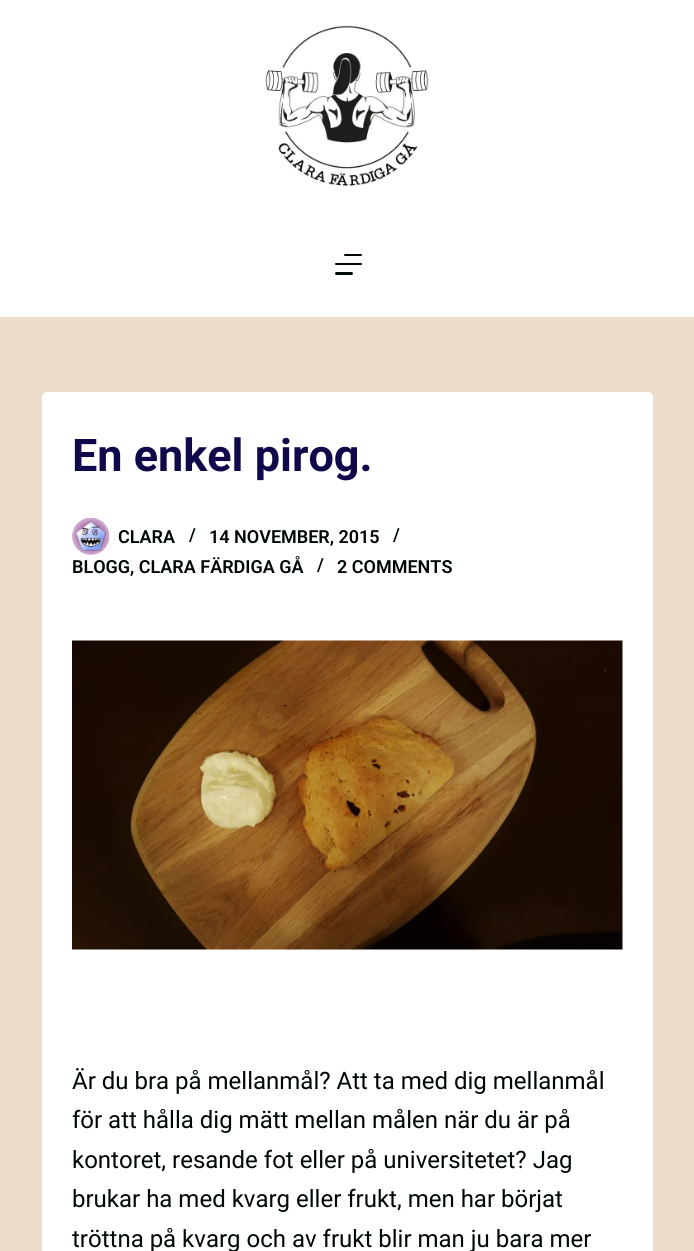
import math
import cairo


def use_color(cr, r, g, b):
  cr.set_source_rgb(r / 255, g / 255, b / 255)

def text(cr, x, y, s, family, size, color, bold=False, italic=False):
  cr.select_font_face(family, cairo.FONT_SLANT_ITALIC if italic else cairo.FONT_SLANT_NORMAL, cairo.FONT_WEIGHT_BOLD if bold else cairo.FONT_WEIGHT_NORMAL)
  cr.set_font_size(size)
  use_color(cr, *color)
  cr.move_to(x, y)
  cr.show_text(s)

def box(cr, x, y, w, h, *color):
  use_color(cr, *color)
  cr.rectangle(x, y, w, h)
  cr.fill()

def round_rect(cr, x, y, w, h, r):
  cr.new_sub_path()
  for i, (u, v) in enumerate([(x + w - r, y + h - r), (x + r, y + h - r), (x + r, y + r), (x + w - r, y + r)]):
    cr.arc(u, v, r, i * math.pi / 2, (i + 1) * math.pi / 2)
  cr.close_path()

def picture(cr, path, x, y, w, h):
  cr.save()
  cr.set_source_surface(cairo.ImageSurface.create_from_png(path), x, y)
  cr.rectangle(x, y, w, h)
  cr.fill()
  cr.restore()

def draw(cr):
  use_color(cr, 235, 220, 203)
  cr.paint()
  box(cr, 0, 0, 694, 317, 255, 255, 255)
  use_color(cr, 0, 8, 7)
  round_rect(cr, 344, 254, 18, 2, 1)
  cr.fill()
  round_rect(cr, 335, 263, 27, 2, 1)
  cr.fill()
  round_rect(cr, 335, 272, 18, 3, 1.5)
  cr.fill()
  picture(cr, "img_01.png", 265, 25, 164, 162)
  use_color(cr, 255, 255, 255)
  round_rect(cr, 42, 392, 611, 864, 5)
  cr.fill()
  picture(cr, "img_02.png", 72, 517, 38, 38)
  picture(cr, "img_03.png", 72, 640, 551, 310)
  text(cr, 72, 471, "En enkel pirog.", "Roboto", 45, (15, 8, 75), bold=True)
  text(cr, 118, 543, "CLARA", "Roboto SemiBold", 18, (0, 8, 7))
  text(cr, 189, 541, "/", "Roboto SemiBold", 18, (0, 8, 7))
  text(cr, 209, 543, "14 NOVEMBER, 2015", "Roboto SemiBold", 18, (0, 8, 7))
  text(cr, 393, 541, "/", "Roboto SemiBold", 18, (0, 8, 7))
  text(cr, 72, 573, "BLOGG, CLARA FÄRDIGA GÅ", "Roboto SemiBold", 18, (0, 8, 7))
  text(cr, 317, 571, "/", "Roboto SemiBold", 18, (0, 8, 7))
  text(cr, 337, 573, "2 COMMENTS", "Roboto SemiBold", 18, (0, 8, 7))
  text(cr, 72, 1089, "Är du bra på mellanmål? Att ta med dig mellanmål", "Roboto", 24, (0, 8, 7))
  text(cr, 72, 1128, "för att hålla dig mätt mellan målen när du är på", "Roboto", 24, (0, 8, 7))
  text(cr, 72, 1168, "kontoret, resande fot eller på universitetet? Jag", "Roboto", 24, (0, 8, 7))
  text(cr, 72, 1207, "brukar ha med kvarg eller frukt, men har börjat", "Roboto", 24, (0, 8, 7))
  text(cr, 72, 1247, "tröttna på kvarg och av frukt blir man ju bara mer", "Roboto", 24, (0, 8, 7))


surface = cairo.ImageSurface(cairo.FORMAT_RGB24, 694, 1251)
cr = cairo.Context(surface)
options = cairo.FontOptions()
options.set_hint_metrics(cairo.HINT_METRICS_OFF)
options.set_hint_style(cairo.HINT_STYLE_NONE)
cr.set_font_options(options)
cr.set_miter_limit(4)
draw(cr)
surface.write_to_png("out.png")
